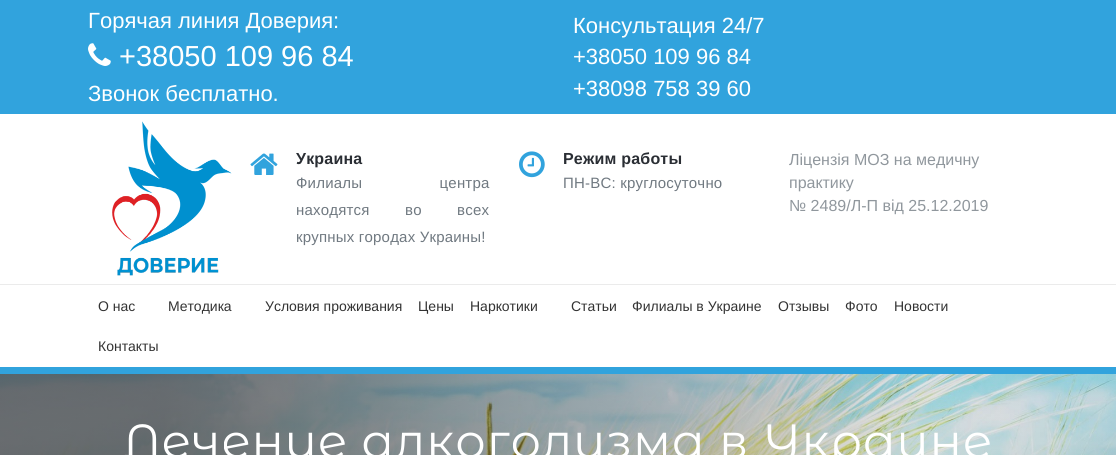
import math
import cairo


def use_color(cr, r, g, b):
  cr.set_source_rgb(r / 255, g / 255, b / 255)

def text(cr, x, y, s, family, size, color, bold=False, italic=False):
  cr.select_font_face(family, cairo.FONT_SLANT_ITALIC if italic else cairo.FONT_SLANT_NORMAL, cairo.FONT_WEIGHT_BOLD if bold else cairo.FONT_WEIGHT_NORMAL)
  cr.set_font_size(size)
  use_color(cr, *color)
  cr.move_to(x, y)
  cr.show_text(s)

def spaced_text(cr, x, y, s, letter, word):
  cr.move_to(x, y)
  for ch in s:
    cr.show_text(ch)
    cr.rel_move_to(letter + word * (ch == ' '), 0)

def box(cr, x, y, w, h, *color):
  use_color(cr, *color)
  cr.rectangle(x, y, w, h)
  cr.fill()

def picture(cr, path, x, y, w, h):
  cr.save()
  cr.set_source_surface(cairo.ImageSurface.create_from_png(path), x, y)
  cr.rectangle(x, y, w, h)
  cr.fill()
  cr.restore()

def draw(cr):
  use_color(cr, 255, 255, 255)
  cr.paint()
  box(cr, 0, 367, 1116, 7, 49, 163, 221)
  box(cr, 0, 0, 1116, 114, 49, 163, 221)
  picture(cr, "img_01.png", 88, 43, 23, 23)
  picture(cr, "img_02.png", 112, 121, 120, 155)
  picture(cr, "img_03.png", 250, 153, 28, 22)
  picture(cr, "img_04.png", 519, 151, 26, 27)
  box(cr, 0, 284, 1116, 1, 235, 235, 235)
  picture(cr, "img_05.png", 0, 374, 1116, 81)
  text(cr, 88, 28, "Горячая линия Доверия:", "Liberation Sans", 22, (255, 255, 255))
  text(cr, 119, 66, "+38050 109 96 84", "Liberation Sans", 29, (255, 255, 255))
  text(cr, 88, 101, "Звонок бесплатно.", "Liberation Sans", 22, (255, 255, 255))
  text(cr, 573, 33, "Консультация 24/7", "Liberation Sans", 22, (255, 255, 255))
  text(cr, 573, 64, "+38050 109 96 84", "Liberation Sans", 22, (255, 255, 255))
  text(cr, 573, 96, "+38098 758 39 60", "Liberation Sans", 22, (255, 255, 255))
  cr.select_font_face("Liberation Sans", cairo.FONT_SLANT_NORMAL, cairo.FONT_WEIGHT_BOLD)
  cr.set_font_size(16)
  use_color(cr, 42, 46, 52)
  spaced_text(cr, 296, 164, "Украина", 0.2, 0)
  cr.select_font_face("Liberation Sans")
  cr.set_font_size(15)
  use_color(cr, 112, 121, 129)
  spaced_text(cr, 296, 188, "Филиалы центра", 0.2, 73)
  spaced_text(cr, 296, 215, "находятся во всех", 0.2, 31)
  spaced_text(cr, 296, 242, "крупных городах Украины!", 0.2, 0)
  cr.select_font_face("Liberation Sans", cairo.FONT_SLANT_NORMAL, cairo.FONT_WEIGHT_BOLD)
  cr.set_font_size(16)
  use_color(cr, 42, 46, 52)
  spaced_text(cr, 563, 164, "Режим работы", 0.2, 0)
  cr.select_font_face("Liberation Sans")
  cr.set_font_size(15)
  use_color(cr, 112, 121, 129)
  spaced_text(cr, 563, 188, "ПН-ВС: круглосуточно", 0.2, 0)
  text(cr, 789, 165, "Лiцензiя МОЗ на медичну", "Liberation Sans", 16, (144, 151, 157))
  text(cr, 789, 188, "практику", "Liberation Sans", 16, (144, 151, 157))
  text(cr, 789, 211, "№ 2489/Л-П вiд 25.12.2019", "Liberation Sans", 16, (144, 151, 157))
  text(cr, 98, 311, "О нас", "Liberation Sans", 14, (51, 51, 51))
  text(cr, 168, 311, "Методика", "Liberation Sans", 14, (51, 51, 51))
  text(cr, 265, 311, "Условия проживания", "Liberation Sans", 14, (51, 51, 51))
  text(cr, 418, 311, "Цены", "Liberation Sans", 14, (51, 51, 51))
  text(cr, 470, 311, "Наркотики", "Liberation Sans", 14, (51, 51, 51))
  text(cr, 571, 311, "Статьи", "Liberation Sans", 14, (51, 51, 51))
  text(cr, 632, 311, "Филиалы в Украине", "Liberation Sans", 14, (51, 51, 51))
  text(cr, 778, 311, "Отзывы", "Liberation Sans", 14, (51, 51, 51))
  text(cr, 845, 311, "Фото", "Liberation Sans", 14, (51, 51, 51))
  text(cr, 894, 311, "Новости", "Liberation Sans", 14, (51, 51, 51))
  text(cr, 98, 351, "Контакты", "Liberation Sans", 14, (51, 51, 51))
  cr.select_font_face("Montserrat Alternates")
  cr.set_font_size(48)
  use_color(cr, 255, 255, 255)
  spaced_text(cr, 123, 458, "Лечение алкоголизма в Украине", 1, 0)


surface = cairo.ImageSurface(cairo.FORMAT_RGB24, 1116, 455)
cr = cairo.Context(surface)
options = cairo.FontOptions()
options.set_hint_metrics(cairo.HINT_METRICS_OFF)
options.set_hint_style(cairo.HINT_STYLE_NONE)
cr.set_font_options(options)
cr.set_miter_limit(4)
draw(cr)
surface.write_to_png("out.png")
